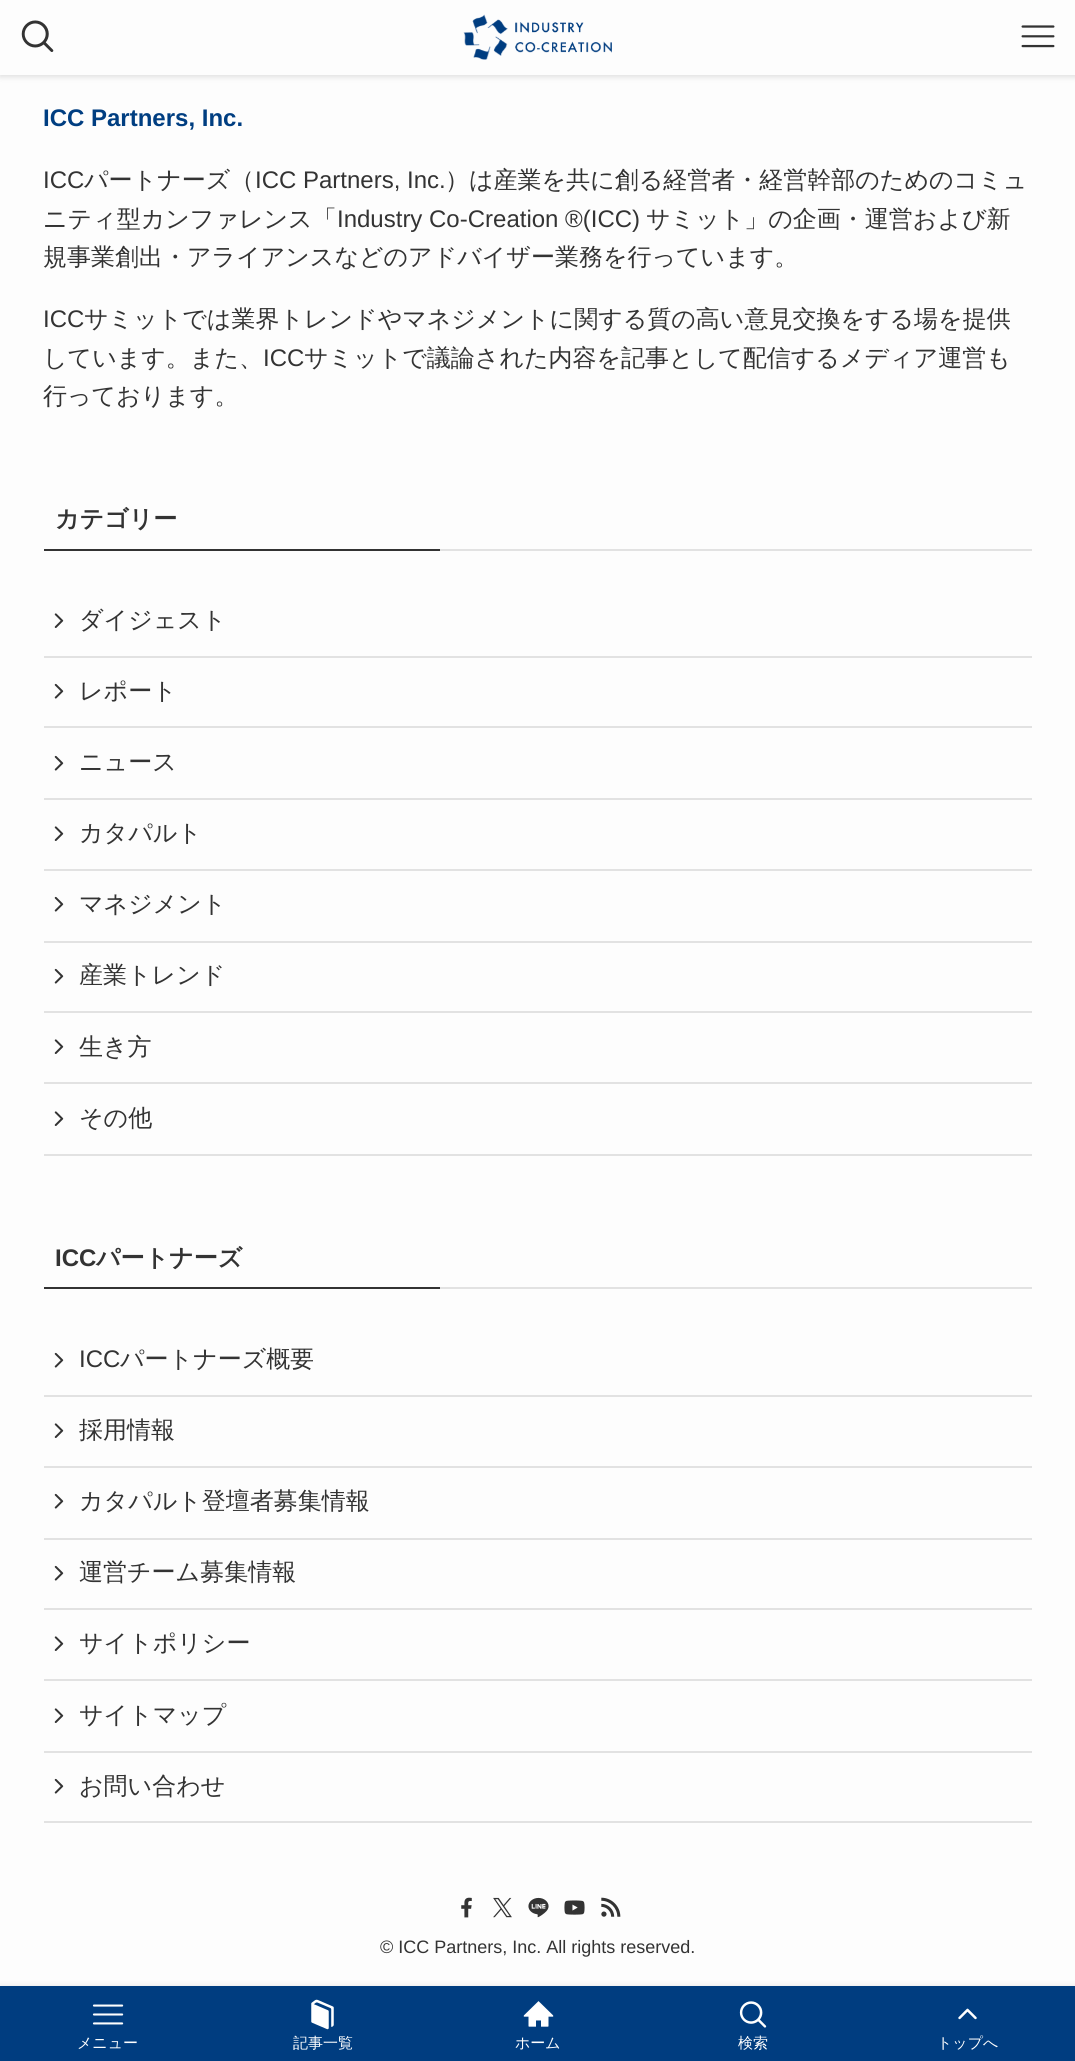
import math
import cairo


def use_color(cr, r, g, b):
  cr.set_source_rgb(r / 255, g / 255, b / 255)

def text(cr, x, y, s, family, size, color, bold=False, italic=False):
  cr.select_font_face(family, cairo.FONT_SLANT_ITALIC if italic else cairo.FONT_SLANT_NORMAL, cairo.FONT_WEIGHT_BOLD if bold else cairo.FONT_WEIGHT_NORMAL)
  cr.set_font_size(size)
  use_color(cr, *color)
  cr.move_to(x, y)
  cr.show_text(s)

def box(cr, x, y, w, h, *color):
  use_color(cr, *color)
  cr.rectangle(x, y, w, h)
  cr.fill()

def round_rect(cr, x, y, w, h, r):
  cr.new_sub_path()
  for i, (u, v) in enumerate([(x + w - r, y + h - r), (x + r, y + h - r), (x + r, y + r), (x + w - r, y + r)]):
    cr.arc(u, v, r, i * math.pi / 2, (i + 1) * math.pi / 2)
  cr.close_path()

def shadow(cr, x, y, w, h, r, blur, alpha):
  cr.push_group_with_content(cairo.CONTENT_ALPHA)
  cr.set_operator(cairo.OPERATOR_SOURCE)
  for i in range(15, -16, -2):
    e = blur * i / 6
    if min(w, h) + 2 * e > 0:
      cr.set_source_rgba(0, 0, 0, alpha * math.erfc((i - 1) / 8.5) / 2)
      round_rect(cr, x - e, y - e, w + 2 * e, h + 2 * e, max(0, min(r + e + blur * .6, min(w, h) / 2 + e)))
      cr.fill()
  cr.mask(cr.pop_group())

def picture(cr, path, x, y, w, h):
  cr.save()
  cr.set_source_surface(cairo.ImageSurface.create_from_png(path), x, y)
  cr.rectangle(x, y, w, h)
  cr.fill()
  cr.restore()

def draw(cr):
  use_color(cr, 253, 253, 253)
  cr.paint()
  use_color(cr, 0, 0, 0)
  shadow(cr, 0, 2, 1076, 75, 0, 3, 0.12)
  box(cr, 0, 0, 1075, 75, 253, 253, 253)
  picture(cr, "img_01.png", 21, 20, 33, 32)
  picture(cr, "img_02.png", 463, 14, 149, 46)
  picture(cr, "img_03.png", 1021, 25, 34, 23)
  box(cr, 44, 549, 396, 2, 51, 51, 51)
  box(cr, 440, 549, 592, 2, 226, 226, 226)
  box(cr, 44, 656, 988, 2, 226, 226, 226)
  picture(cr, "img_04.png", 54, 613, 10, 15)
  box(cr, 44, 726, 988, 2, 226, 226, 226)
  picture(cr, "img_05.png", 54, 683, 10, 16)
  box(cr, 44, 798, 988, 2, 226, 226, 226)
  picture(cr, "img_05.png", 54, 755, 10, 16)
  box(cr, 44, 869, 988, 2, 226, 226, 226)
  picture(cr, "img_04.png", 54, 826, 10, 15)
  box(cr, 44, 941, 988, 2, 226, 226, 226)
  picture(cr, "img_05.png", 54, 896, 10, 16)
  box(cr, 44, 1011, 988, 2, 226, 226, 226)
  picture(cr, "img_05.png", 54, 968, 10, 16)
  box(cr, 44, 1082, 988, 2, 226, 226, 226)
  picture(cr, "img_04.png", 54, 1039, 10, 15)
  box(cr, 44, 1154, 988, 2, 226, 226, 226)
  picture(cr, "img_04.png", 54, 1111, 10, 15)
  box(cr, 44, 1287, 396, 2, 51, 51, 51)
  box(cr, 440, 1287, 592, 2, 226, 226, 226)
  box(cr, 44, 1395, 988, 2, 226, 226, 226)
  picture(cr, "img_05.png", 54, 1352, 10, 16)
  box(cr, 44, 1466, 988, 2, 226, 226, 226)
  picture(cr, "img_04.png", 54, 1423, 10, 15)
  box(cr, 44, 1538, 988, 2, 226, 226, 226)
  picture(cr, "img_05.png", 54, 1493, 10, 16)
  box(cr, 44, 1608, 988, 2, 226, 226, 226)
  picture(cr, "img_05.png", 54, 1565, 10, 16)
  box(cr, 44, 1679, 988, 2, 226, 226, 226)
  picture(cr, "img_04.png", 54, 1636, 10, 15)
  box(cr, 44, 1751, 988, 2, 226, 226, 226)
  picture(cr, "img_04.png", 54, 1708, 10, 15)
  box(cr, 44, 1821, 988, 2, 226, 226, 226)
  picture(cr, "img_05.png", 54, 1778, 10, 16)
  picture(cr, "img_06.png", 461, 1897, 11, 21)
  picture(cr, "img_07.png", 493, 1897, 19, 21)
  picture(cr, "img_08.png", 528, 1897, 21, 21)
  picture(cr, "img_09.png", 564, 1900, 21, 15)
  picture(cr, "img_10.png", 601, 1897, 20, 20)
  use_color(cr, 0, 0, 0)
  shadow(cr, 0, 1986, 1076, 75, 0, 3, 0.1)
  box(cr, 0, 1986, 1075, 75, 0, 61, 128)
  picture(cr, "img_11.png", 92, 2004, 32, 21)
  picture(cr, "img_12.png", 311, 1999, 23, 31)
  picture(cr, "img_13.png", 523, 2001, 31, 26)
  picture(cr, "img_14.png", 739, 2001, 28, 27)
  picture(cr, "img_15.png", 958, 2008, 19, 12)
  text(cr, 43, 126, "ICC Partners, Inc.", "Liberation Sans", 24, (0, 62, 129), bold=True)
  text(cr, 43, 188, "ICC", "Liberation Sans", 24, (51, 51, 51))
  text(cr, 84, 188, "パートナーズ（", "WenQuanYi Zen Hei Medium", 24, (51, 51, 51))
  text(cr, 255, 188, "ICC Partners, Inc.", "Liberation Sans", 24, (51, 51, 51))
  text(cr, 445, 188, "）は産業を共に創る経営者・経営幹部のためのコミュ", "WenQuanYi Zen Hei Medium", 24, (51, 51, 51))
  text(cr, 43, 227, "ニティ型カンファレンス「", "WenQuanYi Zen Hei Medium", 24, (51, 51, 51))
  text(cr, 337, 227, "Industry Co-Creation ®(ICC)", "Liberation Sans", 24, (51, 51, 51))
  text(cr, 646, 227, "サミット」の企画・運営および新", "WenQuanYi Zen Hei Medium", 24, (51, 51, 51))
  text(cr, 43, 265, "規事業創出・アライアンスなどのアドバイザー業務を行っています。", "WenQuanYi Zen Hei Medium", 24, (51, 51, 51))
  text(cr, 43, 327, "ICC", "Liberation Sans", 24, (51, 51, 51))
  text(cr, 84, 327, "サミットでは業界トレンドやマネジメントに関する質の高い意見交換をする場を提供", "WenQuanYi Zen Hei Medium", 24, (51, 51, 51))
  text(cr, 43, 366, "しています。また、", "WenQuanYi Zen Hei Medium", 24, (51, 51, 51))
  text(cr, 263, 366, "ICC", "Liberation Sans", 24, (51, 51, 51))
  text(cr, 304, 366, "サミットで議論された内容を記事として配信するメディア運営も", "WenQuanYi Zen Hei Medium", 24, (51, 51, 51))
  text(cr, 43, 404, "行っております。", "WenQuanYi Zen Hei Medium", 24, (51, 51, 51))
  text(cr, 55, 527, "カテゴリー", "WenQuanYi Zen Hei", 24, (51, 51, 51), bold=True)
  text(cr, 79, 628, "ダイジェスト", "WenQuanYi Zen Hei Medium", 24, (51, 51, 51))
  text(cr, 79, 699, "レポート", "WenQuanYi Zen Hei Medium", 24, (51, 51, 51))
  text(cr, 79, 770, "ニュース", "WenQuanYi Zen Hei Medium", 24, (51, 51, 51))
  text(cr, 79, 841, "カタパルト", "WenQuanYi Zen Hei Medium", 24, (51, 51, 51))
  text(cr, 79, 912, "マネジメント", "WenQuanYi Zen Hei Medium", 24, (51, 51, 51))
  text(cr, 79, 983, "産業トレンド", "WenQuanYi Zen Hei Medium", 24, (51, 51, 51))
  text(cr, 79, 1055, "生き方", "WenQuanYi Zen Hei Medium", 24, (51, 51, 51))
  text(cr, 79, 1126, "その他", "WenQuanYi Zen Hei Medium", 24, (51, 51, 51))
  text(cr, 55, 1266, "ICC", "Liberation Sans", 24, (51, 51, 51), bold=True)
  text(cr, 96, 1266, "パートナーズ", "WenQuanYi Zen Hei", 24, (51, 51, 51), bold=True)
  text(cr, 79, 1367, "ICC", "Liberation Sans", 24, (51, 51, 51))
  text(cr, 120, 1367, "パートナーズ概要", "WenQuanYi Zen Hei Medium", 24, (51, 51, 51))
  text(cr, 79, 1438, "採用情報", "WenQuanYi Zen Hei Medium", 24, (51, 51, 51))
  text(cr, 79, 1509, "カタパルト登壇者募集情報", "WenQuanYi Zen Hei Medium", 24, (51, 51, 51))
  text(cr, 79, 1580, "運営チーム募集情報", "WenQuanYi Zen Hei Medium", 24, (51, 51, 51))
  text(cr, 79, 1651, "サイトポリシー", "WenQuanYi Zen Hei Medium", 24, (51, 51, 51))
  text(cr, 79, 1723, "サイトマップ", "WenQuanYi Zen Hei Medium", 24, (51, 51, 51))
  text(cr, 79, 1794, "お問い合わせ", "WenQuanYi Zen Hei Medium", 24, (51, 51, 51))
  text(cr, 380, 1953, "© ICC Partners, Inc. All rights reserved.", "Liberation Sans", 18, (51, 51, 51))
  text(cr, 77, 2048, "メニュー", "WenQuanYi Zen Hei Medium", 15, (255, 255, 255))
  text(cr, 293, 2048, "記事一覧", "WenQuanYi Zen Hei Medium", 15, (255, 255, 255))
  text(cr, 515, 2048, "ホーム", "WenQuanYi Zen Hei Medium", 15, (255, 255, 255))
  text(cr, 738, 2048, "検索", "WenQuanYi Zen Hei Medium", 15, (255, 255, 255))
  text(cr, 937, 2048, "トップへ", "WenQuanYi Zen Hei Medium", 15, (255, 255, 255))


surface = cairo.ImageSurface(cairo.FORMAT_RGB24, 1075, 2061)
cr = cairo.Context(surface)
options = cairo.FontOptions()
options.set_hint_metrics(cairo.HINT_METRICS_OFF)
options.set_hint_style(cairo.HINT_STYLE_NONE)
cr.set_font_options(options)
cr.set_miter_limit(4)
draw(cr)
surface.write_to_png("out.png")
